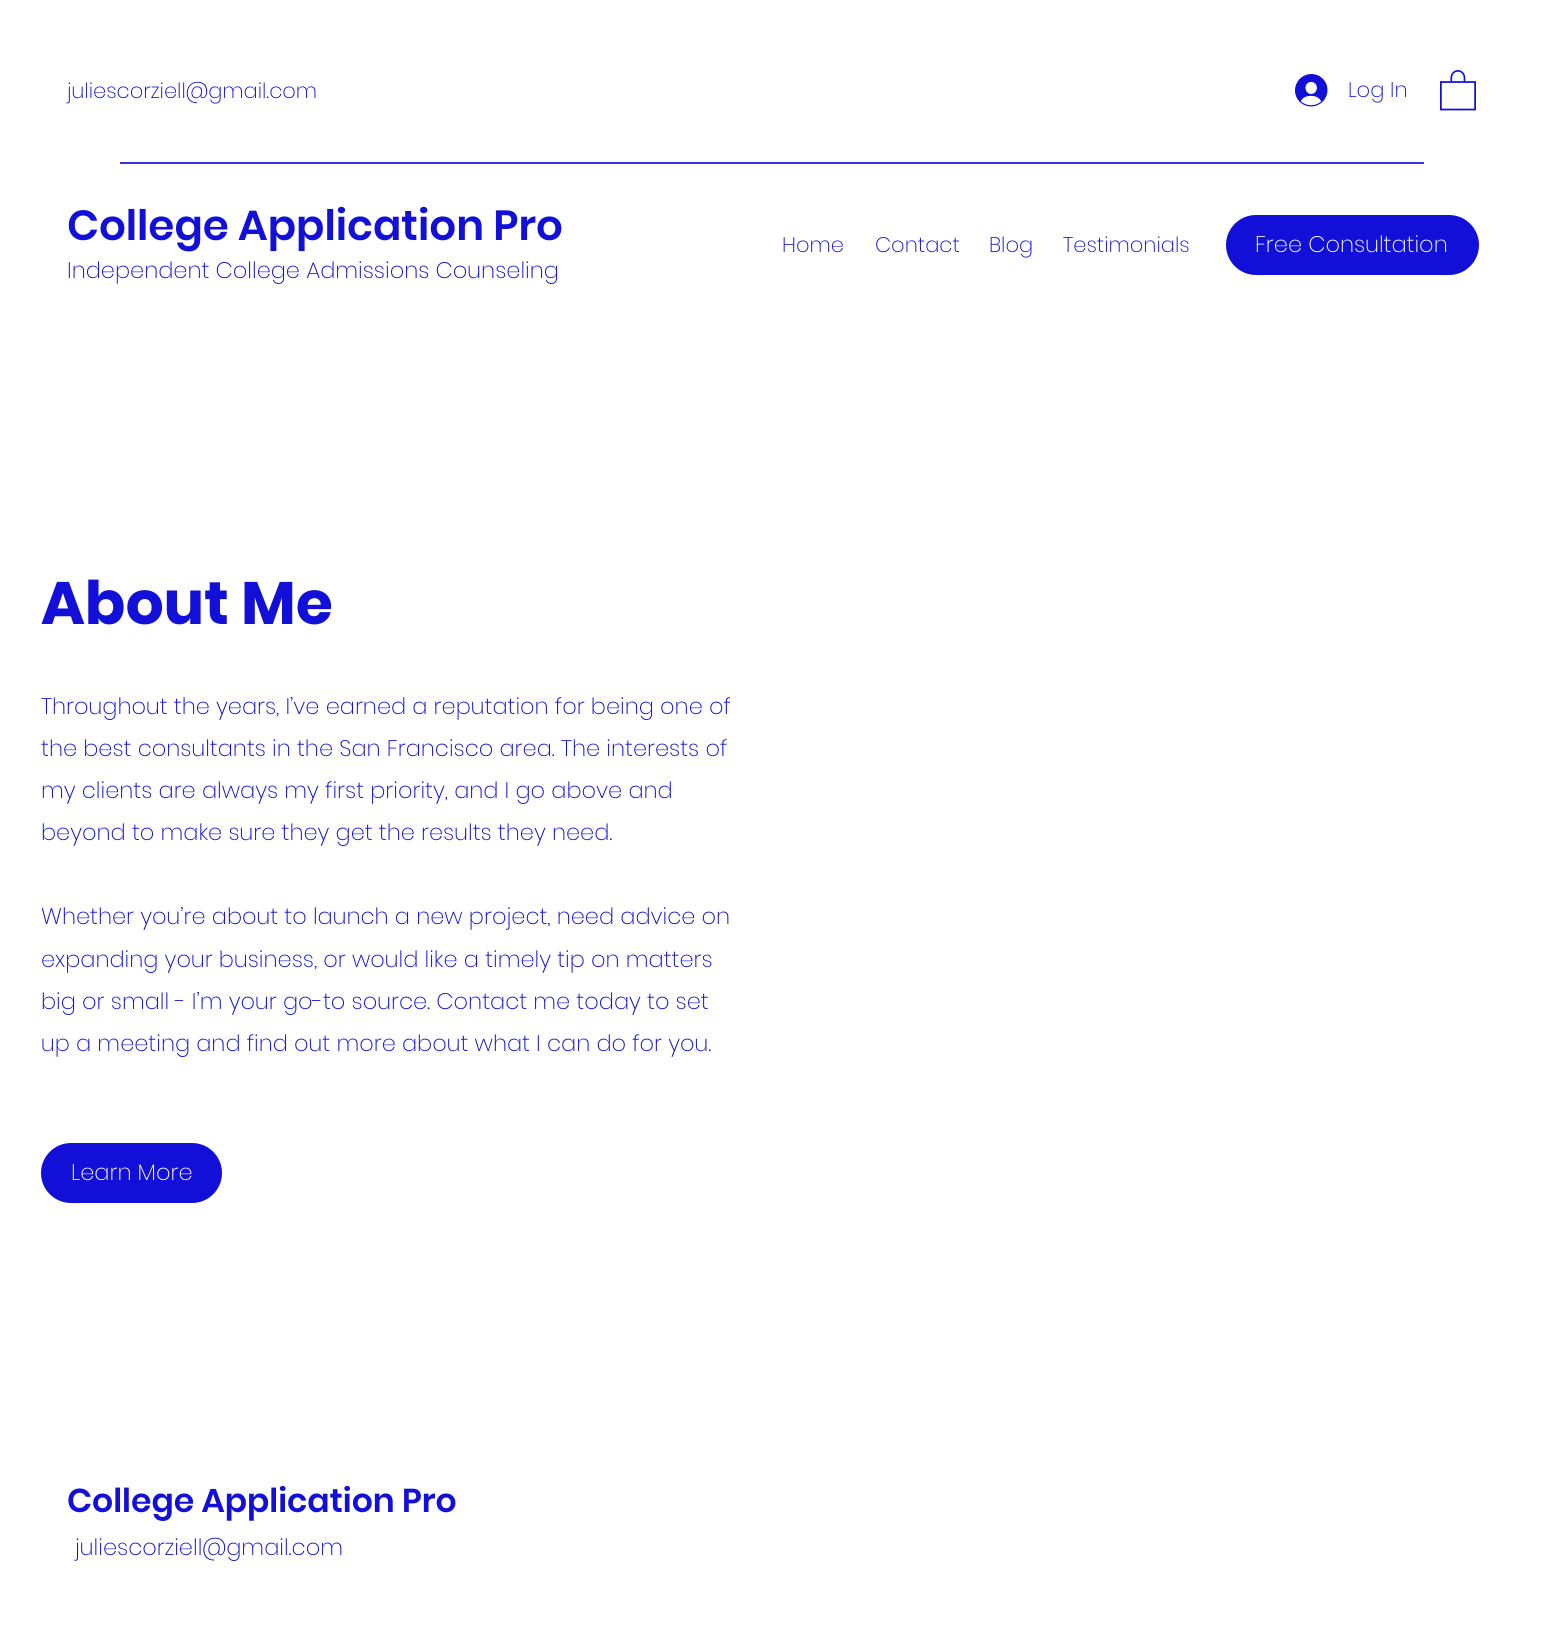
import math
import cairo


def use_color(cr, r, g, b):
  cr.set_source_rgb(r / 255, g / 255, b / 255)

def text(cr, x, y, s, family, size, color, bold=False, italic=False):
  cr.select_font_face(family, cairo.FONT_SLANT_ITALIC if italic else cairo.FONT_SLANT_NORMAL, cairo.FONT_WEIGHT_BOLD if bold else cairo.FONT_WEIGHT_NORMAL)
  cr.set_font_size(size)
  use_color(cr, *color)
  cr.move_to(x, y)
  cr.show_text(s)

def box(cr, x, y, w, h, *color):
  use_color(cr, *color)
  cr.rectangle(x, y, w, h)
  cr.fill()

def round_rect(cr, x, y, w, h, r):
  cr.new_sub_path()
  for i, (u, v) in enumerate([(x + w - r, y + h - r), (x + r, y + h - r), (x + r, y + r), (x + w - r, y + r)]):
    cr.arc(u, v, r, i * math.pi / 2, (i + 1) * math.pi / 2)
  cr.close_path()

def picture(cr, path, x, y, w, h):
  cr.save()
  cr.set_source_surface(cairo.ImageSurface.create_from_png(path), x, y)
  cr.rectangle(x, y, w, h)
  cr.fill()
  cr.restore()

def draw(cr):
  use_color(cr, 255, 255, 255)
  cr.paint()
  picture(cr, "img_01.png", 1295, 74, 33, 33)
  picture(cr, "img_02.png", 1440, 70, 36, 41)
  box(cr, 120, 162, 1304, 2, 54, 51, 222)
  use_color(cr, 18, 15, 216)
  round_rect(cr, 1226, 215, 253, 60, 30)
  cr.fill()
  round_rect(cr, 41, 1143, 181, 60, 30)
  cr.fill()
  text(cr, 67, 98, "juliescorziell@gmail.com", "Poppins ExtraLight", 21, (18, 15, 216))
  text(cr, 1348, 97, "Log In", "Poppins ExtraLight", 21, (18, 15, 216))
  text(cr, 67, 240, "College Application Pro", "Poppins SemiBold", 42, (18, 15, 216))
  text(cr, 67, 278, "Independent College Admissions Counseling", "Poppins ExtraLight", 22.5, (18, 15, 216))
  text(cr, 782, 252, "Home", "Poppins ExtraLight", 21, (18, 15, 216))
  text(cr, 875, 252, "Contact", "Poppins ExtraLight", 21, (18, 15, 216))
  text(cr, 989, 252, "Blog", "Poppins ExtraLight", 21, (18, 15, 216))
  text(cr, 1063, 252, "Testimonials", "Poppins ExtraLight", 21, (18, 15, 216))
  text(cr, 1255, 252, "Free Consultation", "Poppins ExtraLight", 22.5, (255, 255, 255))
  text(cr, 41, 624, "About Me", "Poppins", 60, (18, 15, 216), bold=True)
  text(cr, 41, 714, "Throughout the years, I’ve earned a reputation for being one of", "Poppins ExtraLight", 22.5, (18, 15, 216))
  text(cr, 41, 756, "the best consultants in the San Francisco area. The interests of", "Poppins ExtraLight", 22.5, (18, 15, 216))
  text(cr, 41, 798, "my clients are always my first priority, and I go above and", "Poppins ExtraLight", 22.5, (18, 15, 216))
  text(cr, 41, 840, "beyond to make sure they get the results they need.", "Poppins ExtraLight", 22.5, (18, 15, 216))
  text(cr, 41, 924, "Whether you’re about to launch a new project, need advice on", "Poppins ExtraLight", 22.5, (18, 15, 216))
  text(cr, 41, 967, "expanding your business, or would like a timely tip on matters", "Poppins ExtraLight", 22.5, (18, 15, 216))
  text(cr, 41, 1009, "big or small - I’m your go-to source. Contact me today to set", "Poppins ExtraLight", 22.5, (18, 15, 216))
  text(cr, 41, 1051, "up a meeting and find out more about what I can do for you.", "Poppins ExtraLight", 22.5, (18, 15, 216))
  text(cr, 71, 1180, "Learn More", "Poppins ExtraLight", 22.5, (255, 255, 255))
  text(cr, 67, 1512, "College Application Pro", "Poppins SemiBold", 33, (18, 15, 216))
  text(cr, 75, 1555, "juliescorziell@gmail.com", "Poppins ExtraLight", 22.5, (18, 15, 216))


surface = cairo.ImageSurface(cairo.FORMAT_RGB24, 1543, 1649)
cr = cairo.Context(surface)
options = cairo.FontOptions()
options.set_hint_metrics(cairo.HINT_METRICS_OFF)
options.set_hint_style(cairo.HINT_STYLE_NONE)
cr.set_font_options(options)
cr.set_miter_limit(4)
draw(cr)
surface.write_to_png("out.png")
